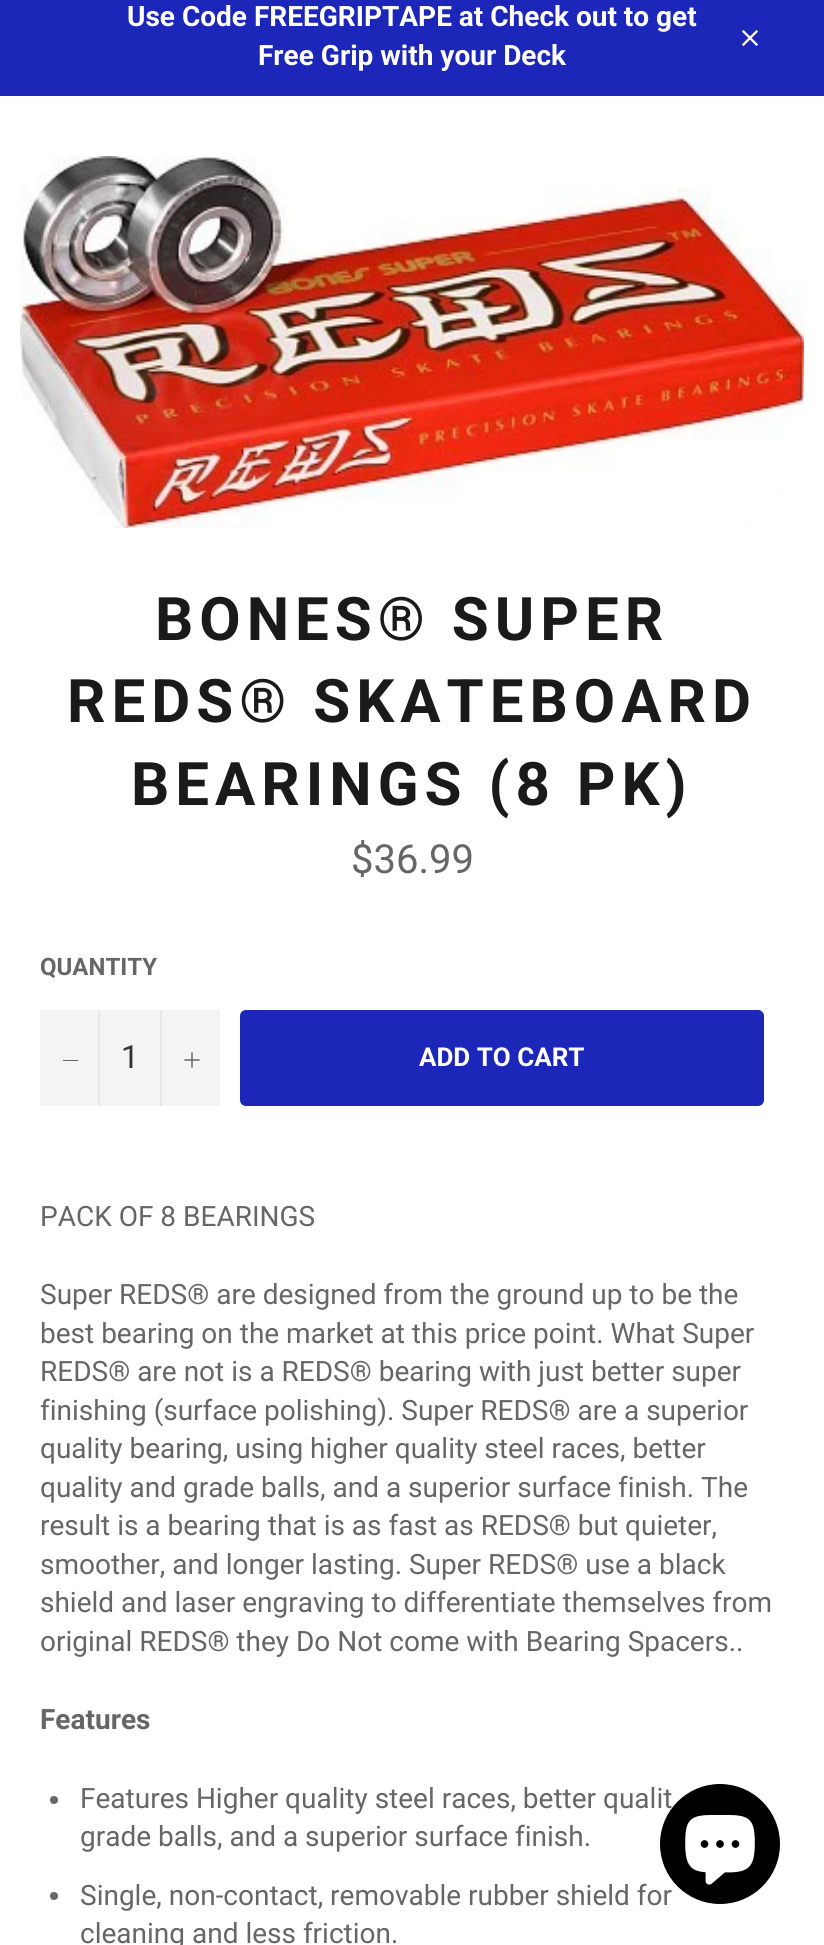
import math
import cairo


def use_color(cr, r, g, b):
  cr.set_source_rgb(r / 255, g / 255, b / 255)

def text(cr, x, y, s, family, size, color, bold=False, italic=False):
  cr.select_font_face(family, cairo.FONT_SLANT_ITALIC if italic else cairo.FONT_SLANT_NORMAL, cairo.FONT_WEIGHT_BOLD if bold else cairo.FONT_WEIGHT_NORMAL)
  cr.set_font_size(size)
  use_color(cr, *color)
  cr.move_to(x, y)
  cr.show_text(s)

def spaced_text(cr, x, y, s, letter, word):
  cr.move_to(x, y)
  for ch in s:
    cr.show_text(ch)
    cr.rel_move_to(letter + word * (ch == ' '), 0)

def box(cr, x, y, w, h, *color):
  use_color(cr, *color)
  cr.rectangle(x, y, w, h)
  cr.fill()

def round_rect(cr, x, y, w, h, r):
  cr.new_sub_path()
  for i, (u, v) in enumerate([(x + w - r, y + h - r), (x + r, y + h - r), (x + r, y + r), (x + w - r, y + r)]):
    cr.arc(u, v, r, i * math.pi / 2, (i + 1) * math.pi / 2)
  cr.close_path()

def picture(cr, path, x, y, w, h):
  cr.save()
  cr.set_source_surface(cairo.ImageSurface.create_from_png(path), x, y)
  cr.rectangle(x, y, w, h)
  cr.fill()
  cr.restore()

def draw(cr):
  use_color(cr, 255, 255, 255)
  cr.paint()
  box(cr, 0, 0, 824, 96, 28, 38, 185)
  picture(cr, "img_01.png", 741, 30, 18, 16)
  picture(cr, "img_02.png", 20, 156, 784, 372)
  box(cr, 40, 1010, 180, 96, 244, 244, 244)
  box(cr, 98, 1010, 2, 96, 231, 231, 231)
  box(cr, 63, 1060, 15, 1, 102, 102, 102)
  box(cr, 160, 1010, 2, 96, 231, 231, 231)
  picture(cr, "img_03.png", 184, 1052, 16, 16)
  use_color(cr, 28, 38, 185)
  round_rect(cr, 240, 1010, 524, 96, 6)
  cr.fill()
  use_color(cr, 102, 102, 102)
  cr.arc(54, 1800, 4, 0, 2 * math.pi)
  cr.fill()
  cr.arc(54, 1896, 4, 0, 2 * math.pi)
  cr.fill()
  text(cr, 127, 26, "Use Code FREEGRIPTAPE at Check out to get", "Roboto", 28, (255, 255, 255), bold=True)
  text(cr, 258, 65, "Free Grip with your Deck", "Roboto", 28, (255, 255, 255), bold=True)
  cr.set_font_size(60)
  use_color(cr, 26, 26, 26)
  spaced_text(cr, 155, 640, "BONES® SUPER", 6, 0)
  spaced_text(cr, 67, 722, "REDS® SKATEBOARD", 6, 0)
  spaced_text(cr, 131, 805, "BEARINGS (8 PK)", 6, 0)
  text(cr, 351, 873, "$36.99", "Roboto", 40, (102, 102, 102))
  text(cr, 40, 975, "QUANTITY", "Roboto", 24, (102, 102, 102), bold=True)
  text(cr, 121, 1068, "1", "Roboto", 32, (51, 51, 51))
  text(cr, 419, 1066, "ADD TO CART", "Roboto", 26, (255, 255, 255), bold=True)
  text(cr, 40, 1226, "PACK OF 8 BEARINGS", "Roboto", 28, (102, 102, 102))
  text(cr, 40, 1304, "Super REDS® are designed from the ground up to be the", "Roboto", 28, (102, 102, 102))
  text(cr, 40, 1343, "best bearing on the market at this price point. What Super", "Roboto", 28, (102, 102, 102))
  text(cr, 40, 1381, "REDS® are not is a REDS® bearing with just better super", "Roboto", 28, (102, 102, 102))
  text(cr, 40, 1420, "finishing (surface polishing). Super REDS® are a superior", "Roboto", 28, (102, 102, 102))
  text(cr, 40, 1458, "quality bearing, using higher quality steel races, better", "Roboto", 28, (102, 102, 102))
  text(cr, 40, 1497, "quality and grade balls, and a superior surface finish. The", "Roboto", 28, (102, 102, 102))
  text(cr, 40, 1535, "result is a bearing that is as fast as REDS® but quieter,", "Roboto", 28, (102, 102, 102))
  text(cr, 40, 1574, "smoother, and longer lasting. Super REDS® use a black", "Roboto", 28, (102, 102, 102))
  text(cr, 40, 1612, "shield and laser engraving to differentiate themselves from", "Roboto", 28, (102, 102, 102))
  text(cr, 40, 1651, "original REDS® they Do Not come with Bearing Spacers..", "Roboto", 28, (102, 102, 102))
  text(cr, 40, 1729, "Features", "Roboto", 28, (102, 102, 102), bold=True)
  text(cr, 80, 1808, "Features Higher quality steel races, better qualit", "Roboto", 28, (102, 102, 102))
  text(cr, 80, 1846, "grade balls, and a superior surface finish.", "Roboto", 28, (102, 102, 102))
  text(cr, 80, 1905, "Single, non-contact, removable rubber shield for", "Roboto", 28, (102, 102, 102))
  text(cr, 80, 1943, "cleaning and less friction.", "Roboto", 28, (102, 102, 102))
  use_color(cr, 0, 0, 0)
  cr.new_path()
  cr.arc(720, 1844, 60, 0, 2 * math.pi)
  cr.fill()
  picture(cr, "img_04.png", 685, 1815, 70, 70)


surface = cairo.ImageSurface(cairo.FORMAT_RGB24, 824, 1945)
cr = cairo.Context(surface)
options = cairo.FontOptions()
options.set_hint_metrics(cairo.HINT_METRICS_OFF)
options.set_hint_style(cairo.HINT_STYLE_NONE)
cr.set_font_options(options)
cr.set_miter_limit(4)
draw(cr)
surface.write_to_png("out.png")
